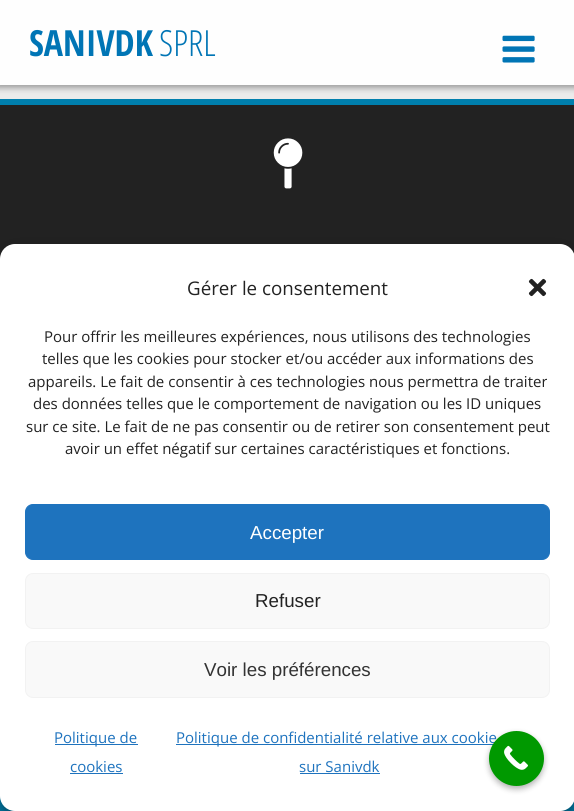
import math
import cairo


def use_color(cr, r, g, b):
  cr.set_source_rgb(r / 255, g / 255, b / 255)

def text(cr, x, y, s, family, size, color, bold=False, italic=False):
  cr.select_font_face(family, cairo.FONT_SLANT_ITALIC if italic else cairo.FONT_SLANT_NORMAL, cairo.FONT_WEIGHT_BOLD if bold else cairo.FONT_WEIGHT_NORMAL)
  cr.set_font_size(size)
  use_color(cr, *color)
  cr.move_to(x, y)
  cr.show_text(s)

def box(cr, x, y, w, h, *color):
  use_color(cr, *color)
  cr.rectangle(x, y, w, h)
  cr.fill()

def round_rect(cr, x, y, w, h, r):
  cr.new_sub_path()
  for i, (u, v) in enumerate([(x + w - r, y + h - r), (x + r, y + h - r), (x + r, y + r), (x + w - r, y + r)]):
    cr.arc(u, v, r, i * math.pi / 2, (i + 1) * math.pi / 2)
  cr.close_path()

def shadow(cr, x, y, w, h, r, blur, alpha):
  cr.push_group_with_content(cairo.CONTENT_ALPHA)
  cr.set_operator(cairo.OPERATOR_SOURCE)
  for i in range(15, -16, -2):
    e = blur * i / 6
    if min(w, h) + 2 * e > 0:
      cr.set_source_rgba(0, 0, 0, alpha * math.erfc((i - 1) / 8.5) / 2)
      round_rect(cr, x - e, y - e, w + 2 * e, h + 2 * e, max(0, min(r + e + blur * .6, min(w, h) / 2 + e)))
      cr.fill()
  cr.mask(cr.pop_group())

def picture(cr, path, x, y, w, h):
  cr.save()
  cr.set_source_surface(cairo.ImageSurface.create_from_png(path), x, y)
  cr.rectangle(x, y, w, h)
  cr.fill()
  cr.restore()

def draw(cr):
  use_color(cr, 235, 235, 235)
  cr.paint()
  use_color(cr, 0, 0, 0)
  shadow(cr, -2, -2, 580, 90, 0, 3, 0.33)
  box(cr, 0, 0, 574, 85, 254, 254, 254)
  picture(cr, "img_01.png", 502, 35, 33, 28)
  box(cr, 0, 105, 574, 154, 34, 34, 34)
  box(cr, 0, 99, 574, 6, 0, 127, 173)
  picture(cr, "img_02.png", 273, 138, 30, 51)
  box(cr, 0, 796, 574, 15, 0, 127, 173)
  use_color(cr, 0, 0, 0)
  shadow(cr, 0, 251, 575, 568, 15, 4, 0.23)
  shadow(cr, 0, 256, 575, 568, 15, 12.5, 0.19)
  use_color(cr, 255, 255, 255)
  round_rect(cr, 0, 244, 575, 567, 15)
  cr.fill()
  box(cr, 176, 744, 318, 1, 30, 115, 190)
  use_color(cr, 0, 0, 0)
  shadow(cr, 489, 734, 55, 55, 27.5, 3, 0.3)
  picture(cr, "img_04.png", 528, 278, 19, 19)
  use_color(cr, 30, 115, 190)
  round_rect(cr, 25.5, 504.5, 524, 55, 7.5)
  cr.fill_preserve()
  cr.set_line_width(1)
  cr.stroke()
  use_color(cr, 249, 249, 249)
  round_rect(cr, 25.5, 573.5, 524, 55, 7.5)
  cr.fill_preserve()
  use_color(cr, 242, 242, 242)
  cr.stroke()
  use_color(cr, 249, 249, 249)
  round_rect(cr, 25.5, 641.5, 524, 56, 7.5)
  cr.fill_preserve()
  use_color(cr, 242, 242, 242)
  cr.stroke()
  box(cr, 55, 744, 83, 1, 30, 115, 190)
  box(cr, 70, 773, 53, 1, 30, 115, 190)
  box(cr, 300, 773, 80, 1, 30, 115, 190)
  text(cr, 29, 56, "SANIVDK", "Open Sans Condensed", 36, (0, 117, 181), bold=True)
  text(cr, 159, 56, "SPRL", "Open Sans Condensed Light", 36, (0, 117, 181))
  text(cr, 187, 295, "Gérer le consentement", "Open Sans", 18.75, (34, 34, 34))
  text(cr, 44, 342, "Pour offrir les meilleures expériences, nous utilisons des technologies", "Open Sans", 15, (34, 34, 34))
  text(cr, 42, 364, "telles que les cookies pour stocker et/ou accéder aux informations des", "Open Sans", 15, (34, 34, 34))
  text(cr, 28, 387, "appareils. Le fait de consentir à ces technologies nous permettra de traiter", "Open Sans", 15, (34, 34, 34))
  text(cr, 33, 409, "des données telles que le comportement de navigation ou les ID uniques", "Open Sans", 15, (34, 34, 34))
  text(cr, 26, 432, "sur ce site. Le fait de ne pas consentir ou de retirer son consentement peut", "Open Sans", 15, (34, 34, 34))
  text(cr, 65, 454, "avoir un effet négatif sur certaines caractéristiques et fonctions.", "Open Sans", 15, (34, 34, 34))
  text(cr, 250, 539, "Accepter", "Liberation Sans", 18.75, (255, 255, 255))
  text(cr, 255, 607, "Refuser", "Liberation Sans", 18.75, (34, 34, 34))
  text(cr, 204, 676, "Voir les préférences", "Liberation Sans", 18.75, (51, 51, 51))
  text(cr, 54, 743, "Politique de", "Open Sans", 15, (30, 115, 190))
  text(cr, 70, 772, "cookies", "Open Sans", 15, (30, 115, 190))
  text(cr, 176, 743, "Politique de confidentialité relative aux cookie", "Open Sans", 15, (30, 115, 190))
  use_color(cr, 0, 153, 0)
  cr.new_path()
  cr.arc(516.5, 758.5, 27.5, 0, 2 * math.pi)
  cr.fill()
  picture(cr, "img_03.png", 504, 745, 24, 25)
  text(cr, 299, 772, "sur Sanivdk", "Open Sans", 15, (30, 115, 190))


surface = cairo.ImageSurface(cairo.FORMAT_RGB24, 574, 811)
cr = cairo.Context(surface)
options = cairo.FontOptions()
options.set_hint_metrics(cairo.HINT_METRICS_OFF)
options.set_hint_style(cairo.HINT_STYLE_NONE)
cr.set_font_options(options)
cr.set_miter_limit(4)
draw(cr)
surface.write_to_png("out.png")
